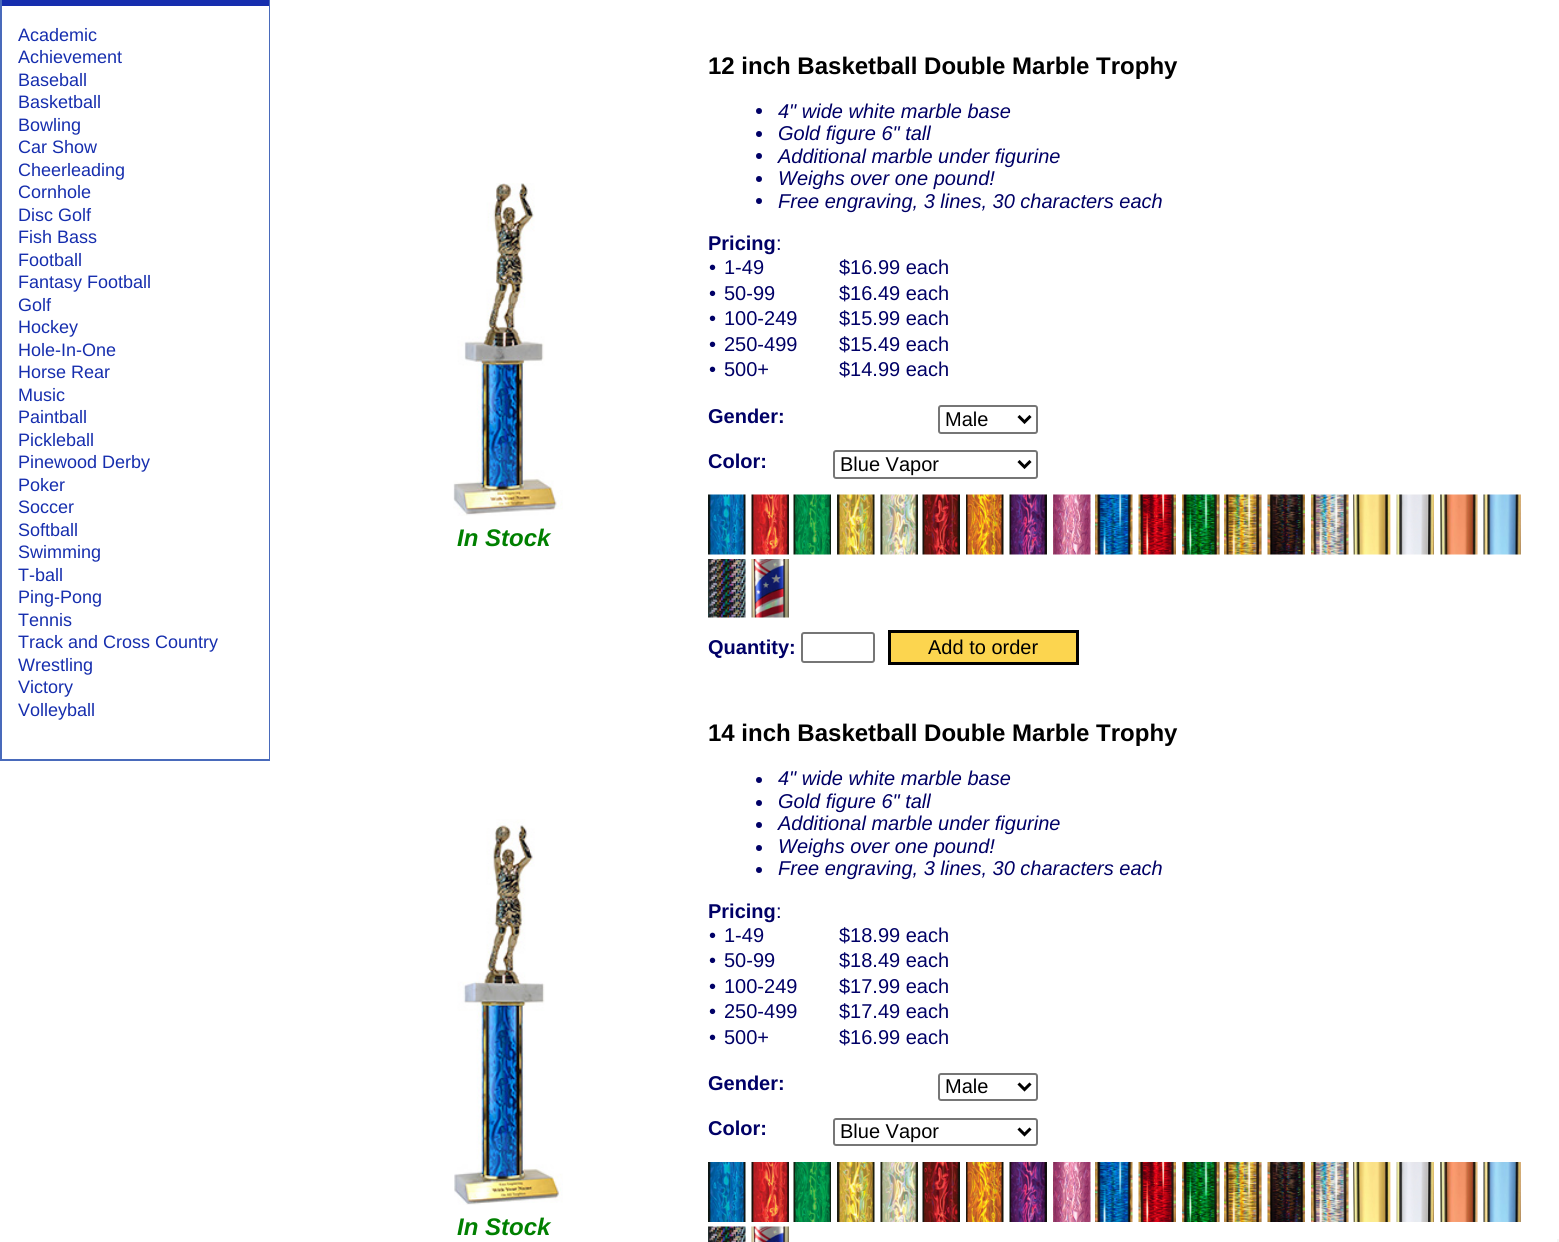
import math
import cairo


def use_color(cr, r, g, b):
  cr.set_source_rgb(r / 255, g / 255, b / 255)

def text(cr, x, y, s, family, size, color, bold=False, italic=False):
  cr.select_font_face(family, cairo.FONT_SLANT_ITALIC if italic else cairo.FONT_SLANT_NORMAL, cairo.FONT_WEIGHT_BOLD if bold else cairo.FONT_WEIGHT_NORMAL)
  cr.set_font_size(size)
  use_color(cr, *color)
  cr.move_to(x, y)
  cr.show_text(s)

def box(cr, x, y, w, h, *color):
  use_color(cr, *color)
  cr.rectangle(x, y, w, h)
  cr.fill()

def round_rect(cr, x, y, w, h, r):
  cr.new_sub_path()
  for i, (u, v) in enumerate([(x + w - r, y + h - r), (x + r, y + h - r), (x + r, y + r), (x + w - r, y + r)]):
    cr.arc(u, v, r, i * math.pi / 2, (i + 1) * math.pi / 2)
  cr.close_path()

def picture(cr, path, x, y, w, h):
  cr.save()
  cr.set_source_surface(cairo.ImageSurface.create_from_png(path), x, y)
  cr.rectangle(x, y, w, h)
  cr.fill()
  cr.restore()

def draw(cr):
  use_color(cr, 255, 255, 255)
  cr.paint()
  box(cr, 0, 0, 270, 761, 73, 106, 187)
  box(cr, 2, 6, 267, 753, 255, 255, 255)
  box(cr, 2, 0, 267, 6, 22, 46, 174)
  picture(cr, "img_01.png", 453, 183, 110, 333)
  use_color(cr, 0, 0, 102)
  cr.arc(759, 111, 3, 0, 2 * math.pi)
  cr.fill()
  cr.arc(759, 134, 3, 0, 2 * math.pi)
  cr.fill()
  cr.arc(759, 156, 3, 0, 2 * math.pi)
  cr.fill()
  cr.arc(759, 179, 3, 0, 2 * math.pi)
  cr.fill()
  cr.arc(759, 201, 3, 0, 2 * math.pi)
  cr.fill()
  round_rect(cr, 939, 406, 98, 27, 2)
  use_color(cr, 118, 118, 118)
  cr.stroke()
  cr.new_path()
  cr.move_to(1018.5, 416)
  cr.line_to(1024.5, 422)
  cr.line_to(1030.5, 416)
  use_color(cr, 0, 0, 0)
  cr.set_line_width(3)
  cr.stroke()
  round_rect(cr, 834, 451, 203, 27, 2)
  use_color(cr, 118, 118, 118)
  cr.set_line_width(2)
  cr.stroke()
  cr.new_path()
  cr.move_to(1018.5, 461)
  cr.line_to(1024.5, 467)
  cr.line_to(1030.5, 461)
  use_color(cr, 0, 0, 0)
  cr.set_line_width(3)
  cr.stroke()
  picture(cr, "img_02.png", 708, 494, 38, 61)
  picture(cr, "img_03.png", 751, 494, 38, 61)
  picture(cr, "img_04.png", 793, 494, 38, 61)
  picture(cr, "img_05.png", 837, 494, 38, 61)
  picture(cr, "img_06.png", 880, 494, 38, 61)
  picture(cr, "img_07.png", 922, 494, 38, 61)
  picture(cr, "img_08.png", 966, 494, 38, 61)
  picture(cr, "img_09.png", 1009, 494, 38, 61)
  picture(cr, "img_10.png", 1053, 494, 38, 61)
  picture(cr, "img_11.png", 1095, 494, 38, 61)
  picture(cr, "img_12.png", 1138, 494, 38, 61)
  picture(cr, "img_13.png", 1182, 494, 38, 61)
  picture(cr, "img_14.png", 1224, 494, 38, 61)
  picture(cr, "img_15.png", 1267, 494, 38, 61)
  picture(cr, "img_16.png", 1311, 494, 38, 61)
  picture(cr, "img_17.png", 1353, 494, 38, 61)
  picture(cr, "img_18.png", 1396, 494, 38, 61)
  picture(cr, "img_19.png", 1440, 494, 38, 61)
  picture(cr, "img_20.png", 1483, 494, 38, 61)
  picture(cr, "img_21.png", 708, 559, 38, 59)
  picture(cr, "img_22.png", 751, 559, 38, 59)
  round_rect(cr, 802, 633, 72, 29, 2)
  use_color(cr, 118, 118, 118)
  cr.set_line_width(2)
  cr.stroke()
  use_color(cr, 252, 213, 79)
  cr.rectangle(889.5, 631.5, 188, 32)
  cr.fill_preserve()
  use_color(cr, 0, 0, 0)
  cr.set_line_width(3)
  cr.stroke()
  use_color(cr, 0, 0, 102)
  cr.arc(759, 780, 3, 0, 2 * math.pi)
  cr.fill()
  cr.arc(759, 803, 3, 0, 2 * math.pi)
  cr.fill()
  cr.arc(759, 825, 3, 0, 2 * math.pi)
  cr.fill()
  cr.arc(759, 848, 3, 0, 2 * math.pi)
  cr.fill()
  cr.arc(759, 870, 3, 0, 2 * math.pi)
  cr.fill()
  round_rect(cr, 939, 1074, 98, 26, 2)
  use_color(cr, 118, 118, 118)
  cr.set_line_width(2)
  cr.stroke()
  cr.new_path()
  cr.move_to(1018.5, 1083.5)
  cr.line_to(1024.5, 1089.5)
  cr.line_to(1030.5, 1083.5)
  use_color(cr, 0, 0, 0)
  cr.set_line_width(3)
  cr.stroke()
  round_rect(cr, 834, 1119, 203, 26, 2)
  use_color(cr, 118, 118, 118)
  cr.set_line_width(2)
  cr.stroke()
  cr.new_path()
  cr.move_to(1018.5, 1128.5)
  cr.line_to(1024.5, 1134.5)
  cr.line_to(1030.5, 1128.5)
  use_color(cr, 0, 0, 0)
  cr.set_line_width(3)
  cr.stroke()
  picture(cr, "img_23.png", 708, 1162, 38, 60)
  picture(cr, "img_24.png", 751, 1162, 38, 60)
  picture(cr, "img_25.png", 793, 1162, 38, 60)
  picture(cr, "img_26.png", 837, 1162, 38, 60)
  picture(cr, "img_27.png", 880, 1162, 38, 60)
  picture(cr, "img_28.png", 922, 1162, 38, 60)
  picture(cr, "img_29.png", 966, 1162, 38, 60)
  picture(cr, "img_30.png", 1009, 1162, 38, 60)
  picture(cr, "img_31.png", 1053, 1162, 38, 60)
  picture(cr, "img_32.png", 1095, 1162, 38, 60)
  picture(cr, "img_33.png", 1138, 1162, 38, 60)
  picture(cr, "img_34.png", 1182, 1162, 38, 60)
  picture(cr, "img_35.png", 1224, 1162, 38, 60)
  picture(cr, "img_36.png", 1267, 1162, 38, 60)
  picture(cr, "img_37.png", 1311, 1162, 38, 60)
  picture(cr, "img_38.png", 1353, 1162, 38, 60)
  picture(cr, "img_39.png", 1396, 1162, 38, 60)
  picture(cr, "img_40.png", 1440, 1162, 38, 60)
  picture(cr, "img_41.png", 1483, 1162, 38, 60)
  picture(cr, "img_42.png", 708, 1226, 38, 16)
  picture(cr, "img_43.png", 751, 1226, 38, 16)
  picture(cr, "img_44.png", 454, 819, 109, 386)
  box(cr, 1557, 1239, 2, 3, 245, 245, 245)
  text(cr, 18, 41, "Academic", "Liberation Sans", 18, (22, 46, 174))
  text(cr, 18, 63, "Achievement", "Liberation Sans", 18, (22, 46, 174))
  text(cr, 18, 86, "Baseball", "Liberation Sans", 18, (22, 46, 174))
  text(cr, 18, 108, "Basketball", "Liberation Sans", 18, (22, 46, 174))
  text(cr, 18, 131, "Bowling", "Liberation Sans", 18, (22, 46, 174))
  text(cr, 18, 153, "Car Show", "Liberation Sans", 18, (22, 46, 174))
  text(cr, 18, 176, "Cheerleading", "Liberation Sans", 18, (22, 46, 174))
  text(cr, 18, 198, "Cornhole", "Liberation Sans", 18, (22, 46, 174))
  text(cr, 18, 221, "Disc Golf", "Liberation Sans", 18, (22, 46, 174))
  text(cr, 18, 243, "Fish Bass", "Liberation Sans", 18, (22, 46, 174))
  text(cr, 18, 266, "Football", "Liberation Sans", 18, (22, 46, 174))
  text(cr, 18, 288, "Fantasy Football", "Liberation Sans", 18, (22, 46, 174))
  text(cr, 18, 311, "Golf", "Liberation Sans", 18, (22, 46, 174))
  text(cr, 18, 333, "Hockey", "Liberation Sans", 18, (22, 46, 174))
  text(cr, 18, 356, "Hole-In-One", "Liberation Sans", 18, (22, 46, 174))
  text(cr, 18, 378, "Horse Rear", "Liberation Sans", 18, (22, 46, 174))
  text(cr, 18, 401, "Music", "Liberation Sans", 18, (22, 46, 174))
  text(cr, 18, 423, "Paintball", "Liberation Sans", 18, (22, 46, 174))
  text(cr, 18, 446, "Pickleball", "Liberation Sans", 18, (22, 46, 174))
  text(cr, 18, 468, "Pinewood Derby", "Liberation Sans", 18, (22, 46, 174))
  text(cr, 18, 491, "Poker", "Liberation Sans", 18, (22, 46, 174))
  text(cr, 18, 513, "Soccer", "Liberation Sans", 18, (22, 46, 174))
  text(cr, 18, 536, "Softball", "Liberation Sans", 18, (22, 46, 174))
  text(cr, 18, 558, "Swimming", "Liberation Sans", 18, (22, 46, 174))
  text(cr, 18, 581, "T-ball", "Liberation Sans", 18, (22, 46, 174))
  text(cr, 18, 603, "Ping-Pong", "Liberation Sans", 18, (22, 46, 174))
  text(cr, 18, 626, "Tennis", "Liberation Sans", 18, (22, 46, 174))
  text(cr, 18, 648, "Track and Cross Country", "Liberation Sans", 18, (22, 46, 174))
  text(cr, 18, 671, "Wrestling", "Liberation Sans", 18, (22, 46, 174))
  text(cr, 18, 693, "Victory", "Liberation Sans", 18, (22, 46, 174))
  text(cr, 18, 716, "Volleyball", "Liberation Sans", 18, (22, 46, 174))
  text(cr, 457, 546, "In Stock", "Liberation Sans", 24, (0, 128, 0), bold=True, italic=True)
  text(cr, 708, 74, "12 inch Basketball Double Marble Trophy", "Liberation Sans", 24, (0, 0, 0), bold=True)
  text(cr, 778, 118, "4\" wide white marble base", "Liberation Sans", 20, (0, 0, 102), italic=True)
  text(cr, 778, 140, "Gold figure 6\" tall", "Liberation Sans", 20, (0, 0, 102), italic=True)
  text(cr, 778, 163, "Additional marble under figurine", "Liberation Sans", 20, (0, 0, 102), italic=True)
  text(cr, 778, 185, "Weighs over one pound!", "Liberation Sans", 20, (0, 0, 102), italic=True)
  text(cr, 778, 208, "Free engraving, 3 lines, 30 characters each", "Liberation Sans", 20, (0, 0, 102), italic=True)
  text(cr, 708, 250, "Pricing", "Liberation Sans", 20, (0, 0, 102), bold=True)
  text(cr, 776, 250, ":", "Liberation Sans", 20, (0, 0, 102))
  text(cr, 709, 274, "•", "Liberation Sans", 20, (0, 0, 102))
  text(cr, 724, 274, "1-49", "Liberation Sans", 20, (0, 0, 102))
  text(cr, 839, 274, "$16.99 each", "Liberation Sans", 20, (0, 0, 102))
  text(cr, 709, 300, "•", "Liberation Sans", 20, (0, 0, 102))
  text(cr, 724, 300, "50-99", "Liberation Sans", 20, (0, 0, 102))
  text(cr, 839, 300, "$16.49 each", "Liberation Sans", 20, (0, 0, 102))
  text(cr, 709, 325, "•", "Liberation Sans", 20, (0, 0, 102))
  text(cr, 724, 325, "100-249", "Liberation Sans", 20, (0, 0, 102))
  text(cr, 839, 325, "$15.99 each", "Liberation Sans", 20, (0, 0, 102))
  text(cr, 709, 351, "•", "Liberation Sans", 20, (0, 0, 102))
  text(cr, 724, 351, "250-499", "Liberation Sans", 20, (0, 0, 102))
  text(cr, 839, 351, "$15.49 each", "Liberation Sans", 20, (0, 0, 102))
  text(cr, 709, 376, "•", "Liberation Sans", 20, (0, 0, 102))
  text(cr, 724, 376, "500+", "Liberation Sans", 20, (0, 0, 102))
  text(cr, 839, 376, "$14.99 each", "Liberation Sans", 20, (0, 0, 102))
  text(cr, 708, 423, "Gender:", "Liberation Sans", 20, (0, 0, 102), bold=True)
  text(cr, 945, 426, "Male", "Liberation Sans", 20, (0, 0, 0))
  text(cr, 708, 468, "Color:", "Liberation Sans", 20, (0, 0, 102), bold=True)
  text(cr, 840, 471, "Blue Vapor", "Liberation Sans", 20, (0, 0, 0))
  text(cr, 708, 654, "Quantity:", "Liberation Sans", 20, (0, 0, 102), bold=True)
  text(cr, 928, 654, "Add to order", "Liberation Sans", 20, (0, 0, 0))
  text(cr, 708, 741, "14 inch Basketball Double Marble Trophy", "Liberation Sans", 24, (0, 0, 0), bold=True)
  text(cr, 778, 785, "4\" wide white marble base", "Liberation Sans", 20, (0, 0, 102), italic=True)
  text(cr, 778, 808, "Gold figure 6\" tall", "Liberation Sans", 20, (0, 0, 102), italic=True)
  text(cr, 778, 830, "Additional marble under figurine", "Liberation Sans", 20, (0, 0, 102), italic=True)
  text(cr, 778, 853, "Weighs over one pound!", "Liberation Sans", 20, (0, 0, 102), italic=True)
  text(cr, 778, 875, "Free engraving, 3 lines, 30 characters each", "Liberation Sans", 20, (0, 0, 102), italic=True)
  text(cr, 708, 918, "Pricing", "Liberation Sans", 20, (0, 0, 102), bold=True)
  text(cr, 776, 918, ":", "Liberation Sans", 20, (0, 0, 102))
  text(cr, 709, 942, "•", "Liberation Sans", 20, (0, 0, 102))
  text(cr, 724, 942, "1-49", "Liberation Sans", 20, (0, 0, 102))
  text(cr, 839, 942, "$18.99 each", "Liberation Sans", 20, (0, 0, 102))
  text(cr, 709, 967, "•", "Liberation Sans", 20, (0, 0, 102))
  text(cr, 724, 967, "50-99", "Liberation Sans", 20, (0, 0, 102))
  text(cr, 839, 967, "$18.49 each", "Liberation Sans", 20, (0, 0, 102))
  text(cr, 709, 993, "•", "Liberation Sans", 20, (0, 0, 102))
  text(cr, 724, 993, "100-249", "Liberation Sans", 20, (0, 0, 102))
  text(cr, 839, 993, "$17.99 each", "Liberation Sans", 20, (0, 0, 102))
  text(cr, 709, 1018, "•", "Liberation Sans", 20, (0, 0, 102))
  text(cr, 724, 1018, "250-499", "Liberation Sans", 20, (0, 0, 102))
  text(cr, 839, 1018, "$17.49 each", "Liberation Sans", 20, (0, 0, 102))
  text(cr, 709, 1044, "•", "Liberation Sans", 20, (0, 0, 102))
  text(cr, 724, 1044, "500+", "Liberation Sans", 20, (0, 0, 102))
  text(cr, 839, 1044, "$16.99 each", "Liberation Sans", 20, (0, 0, 102))
  text(cr, 708, 1090, "Gender:", "Liberation Sans", 20, (0, 0, 102), bold=True)
  text(cr, 945, 1093, "Male", "Liberation Sans", 20, (0, 0, 0))
  text(cr, 708, 1135, "Color:", "Liberation Sans", 20, (0, 0, 102), bold=True)
  text(cr, 840, 1138, "Blue Vapor", "Liberation Sans", 20, (0, 0, 0))
  text(cr, 457, 1235, "In Stock", "Liberation Sans", 24, (0, 128, 0), bold=True, italic=True)


surface = cairo.ImageSurface(cairo.FORMAT_RGB24, 1559, 1242)
cr = cairo.Context(surface)
options = cairo.FontOptions()
options.set_hint_metrics(cairo.HINT_METRICS_OFF)
options.set_hint_style(cairo.HINT_STYLE_NONE)
cr.set_font_options(options)
cr.set_miter_limit(4)
draw(cr)
surface.write_to_png("out.png")
